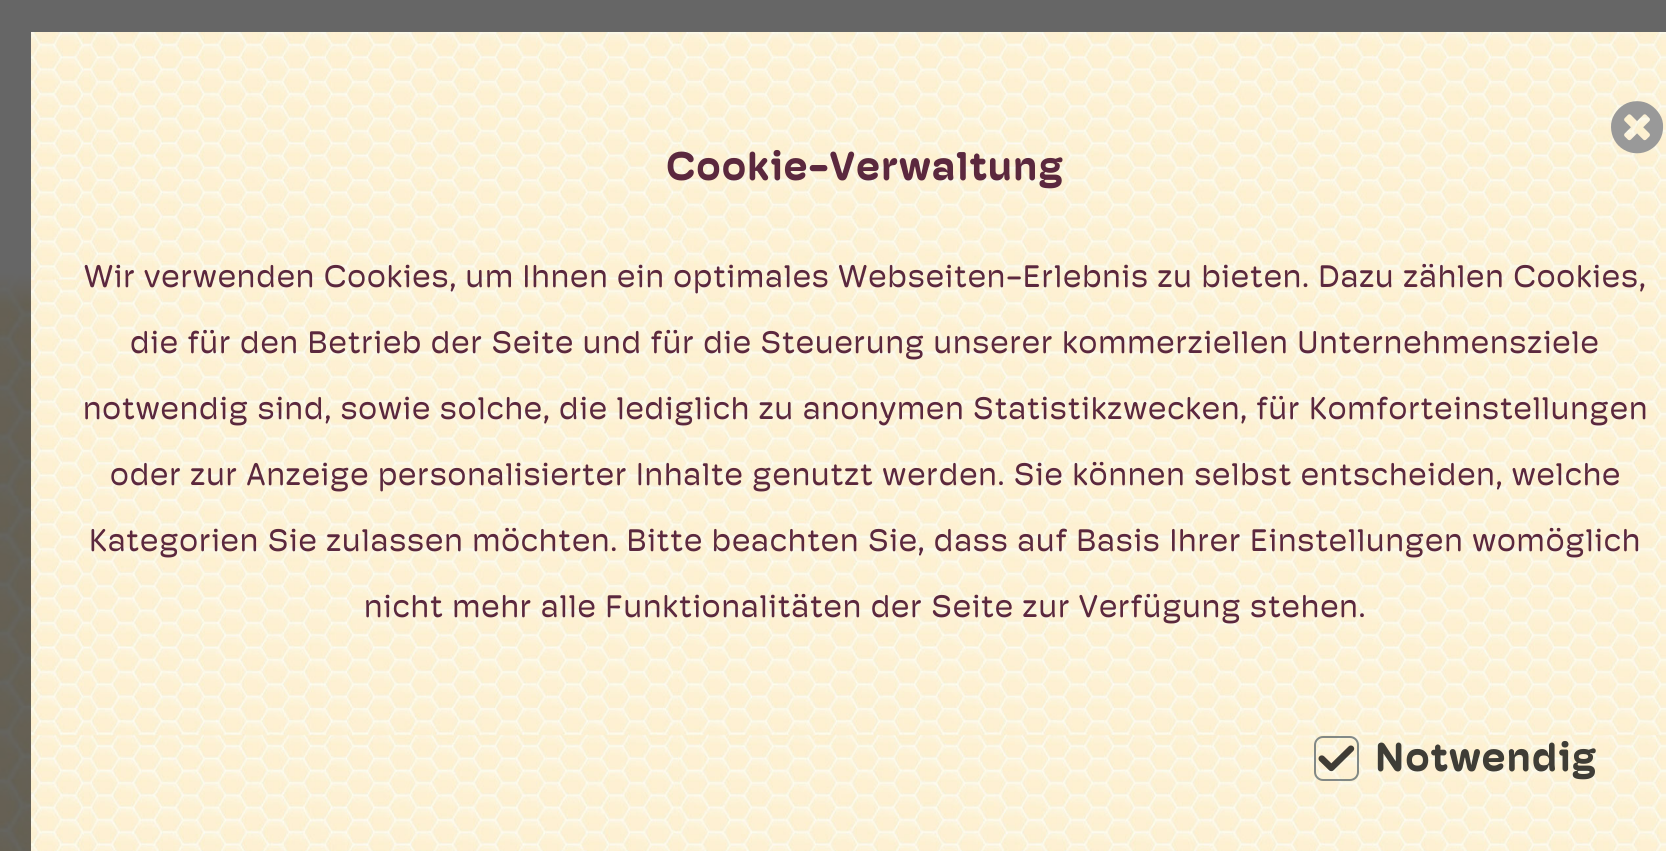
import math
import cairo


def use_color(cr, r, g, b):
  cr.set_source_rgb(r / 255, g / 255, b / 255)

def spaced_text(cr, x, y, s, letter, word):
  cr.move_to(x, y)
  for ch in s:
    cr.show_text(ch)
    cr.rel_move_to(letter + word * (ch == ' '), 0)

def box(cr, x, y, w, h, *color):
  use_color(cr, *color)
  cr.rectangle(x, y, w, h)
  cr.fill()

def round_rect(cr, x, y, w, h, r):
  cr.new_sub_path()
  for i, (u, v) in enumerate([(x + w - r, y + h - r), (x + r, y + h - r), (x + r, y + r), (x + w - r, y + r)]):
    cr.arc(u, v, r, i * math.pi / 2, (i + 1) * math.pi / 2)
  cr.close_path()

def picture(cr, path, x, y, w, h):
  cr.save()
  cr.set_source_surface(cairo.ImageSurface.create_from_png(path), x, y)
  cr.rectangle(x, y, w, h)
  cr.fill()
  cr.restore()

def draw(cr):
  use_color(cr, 255, 255, 255)
  cr.paint()
  picture(cr, "img_01.png", 0, 259, 31, 592)
  box(cr, 0, 0, 1666, 259, 102, 102, 102)
  picture(cr, "img_02.png", 31, 32, 1635, 819)
  picture(cr, "img_03.png", 1611, 101, 53, 53)
  round_rect(cr, 1315, 737, 43, 43, 8)
  cr.set_source_rgba(0.353, 0.396, 0.42, 0.75)
  cr.stroke()
  picture(cr, "img_04.png", 1318, 745, 37, 27)
  cr.select_font_face("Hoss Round", cairo.FONT_SLANT_NORMAL, cairo.FONT_WEIGHT_BOLD)
  cr.set_font_size(40.5)
  use_color(cr, 91, 40, 62)
  spaced_text(cr, 666, 180, "Cookie-Verwaltung", 0.95, 0)
  cr.select_font_face("Hoss Round")
  cr.set_font_size(31.5)
  spaced_text(cr, 84, 287, "Wir verwenden Cookies, um Ihnen ein optimales Webseiten-Erlebnis zu bieten. Dazu zählen Cookies,", 0.95, 0)
  spaced_text(cr, 130, 353, "die für den Betrieb der Seite und für die Steuerung unserer kommerziellen Unternehmensziele", 0.95, 0)
  spaced_text(cr, 83, 419, "notwendig sind, sowie solche, die lediglich zu anonymen Statistikzwecken, für Komforteinstellungen", 0.95, 0)
  spaced_text(cr, 110, 485, "oder zur Anzeige personalisierter Inhalte genutzt werden. Sie können selbst entscheiden, welche", 0.95, 0)
  spaced_text(cr, 89, 551, "Kategorien Sie zulassen möchten. Bitte beachten Sie, dass auf Basis Ihrer Einstellungen womöglich", 0.95, 0)
  spaced_text(cr, 364, 617, "nicht mehr alle Funktionalitäten der Seite zur Verfügung stehen.", 0.95, 0)
  cr.select_font_face("Hoss Round", cairo.FONT_SLANT_NORMAL, cairo.FONT_WEIGHT_BOLD)
  cr.set_font_size(40.5)
  use_color(cr, 63, 61, 54)
  spaced_text(cr, 1375, 771, "Notwendig", 0.95, 0)


surface = cairo.ImageSurface(cairo.FORMAT_RGB24, 1666, 851)
cr = cairo.Context(surface)
options = cairo.FontOptions()
options.set_hint_metrics(cairo.HINT_METRICS_OFF)
options.set_hint_style(cairo.HINT_STYLE_NONE)
cr.set_font_options(options)
cr.set_miter_limit(4)
draw(cr)
surface.write_to_png("out.png")
